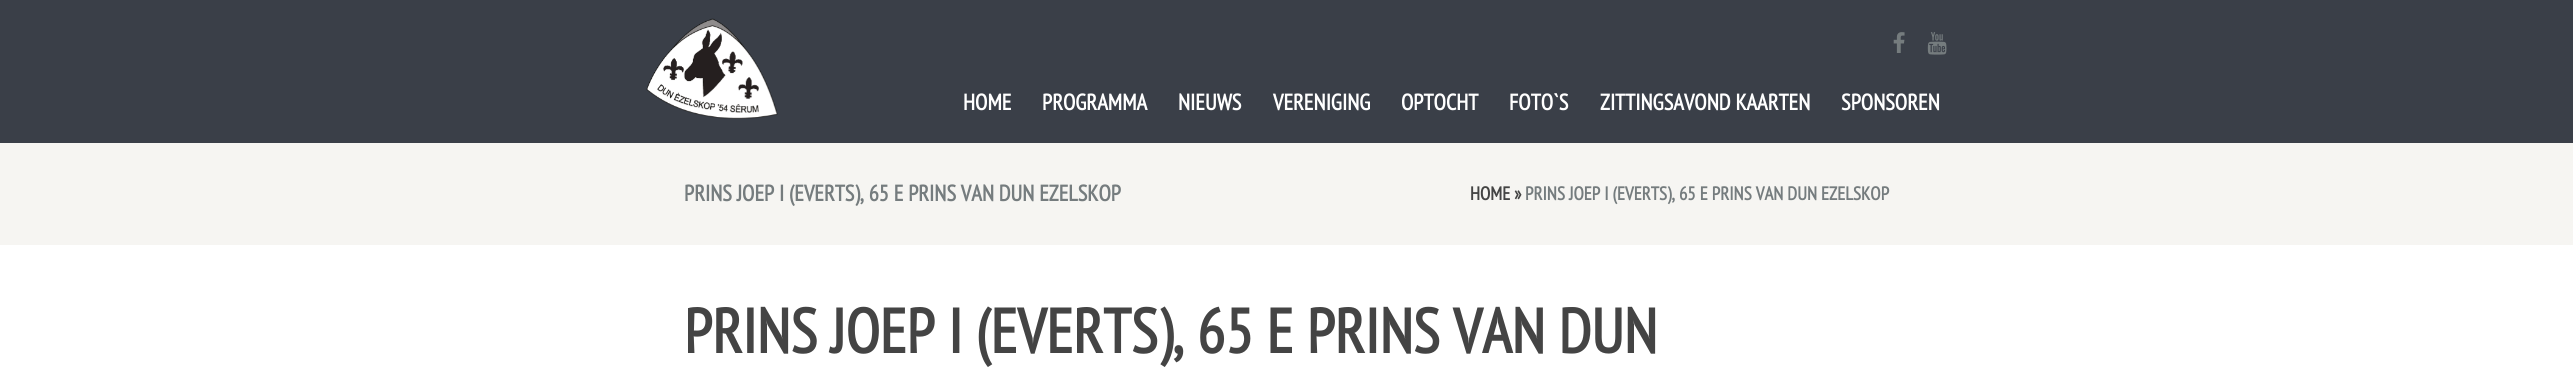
import math
import cairo


def use_color(cr, r, g, b):
  cr.set_source_rgb(r / 255, g / 255, b / 255)

def text(cr, x, y, s, family, size, color, bold=False, italic=False):
  cr.select_font_face(family, cairo.FONT_SLANT_ITALIC if italic else cairo.FONT_SLANT_NORMAL, cairo.FONT_WEIGHT_BOLD if bold else cairo.FONT_WEIGHT_NORMAL)
  cr.set_font_size(size)
  use_color(cr, *color)
  cr.move_to(x, y)
  cr.show_text(s)

def box(cr, x, y, w, h, *color):
  use_color(cr, *color)
  cr.rectangle(x, y, w, h)
  cr.fill()

def picture(cr, path, x, y, w, h):
  cr.save()
  cr.set_source_surface(cairo.ImageSurface.create_from_png(path), x, y)
  cr.rectangle(x, y, w, h)
  cr.fill()
  cr.restore()

def draw(cr):
  use_color(cr, 255, 255, 255)
  cr.paint()
  box(cr, 0, 0, 2573, 143, 58, 63, 72)
  picture(cr, "img_01.png", 1893, 32, 12, 21)
  picture(cr, "img_02.png", 1927, 32, 20, 23)
  picture(cr, "img_03.png", 646, 18, 132, 101)
  box(cr, 0, 143, 2573, 102, 246, 245, 242)
  text(cr, 963, 110, "HOME", "PT Sans Narrow", 22.5, (255, 255, 255), bold=True)
  text(cr, 1042, 110, "PROGRAMMA", "PT Sans Narrow", 22.5, (255, 255, 255), bold=True)
  text(cr, 1178, 110, "NIEUWS", "PT Sans Narrow", 22.5, (255, 255, 255), bold=True)
  text(cr, 1273, 110, "VERENIGING", "PT Sans Narrow", 22.5, (255, 255, 255), bold=True)
  text(cr, 1401, 110, "OPTOCHT", "PT Sans Narrow", 22.5, (255, 255, 255), bold=True)
  text(cr, 1509, 110, "FOTO`S", "PT Sans Narrow", 22.5, (255, 255, 255), bold=True)
  text(cr, 1600, 110, "ZITTINGSAVOND KAARTEN", "PT Sans Narrow", 22.5, (255, 255, 255), bold=True)
  text(cr, 1841, 110, "SPONSOREN", "PT Sans Narrow", 22.5, (255, 255, 255), bold=True)
  text(cr, 684, 201, "PRINS JOEP I (EVERTS), 65 E PRINS VAN DUN EZELSKOP", "PT Sans Narrow", 22.5, (117, 124, 126), bold=True)
  text(cr, 1470, 200, "HOME »", "PT Sans Narrow", 18.75, (68, 68, 68), bold=True)
  text(cr, 1525, 200, "PRINS JOEP I (EVERTS), 65 E PRINS VAN DUN EZELSKOP", "PT Sans Narrow", 18.75, (117, 124, 126), bold=True)
  text(cr, 684, 353, "PRINS JOEP I (EVERTS), 65 E PRINS VAN DUN", "PT Sans Narrow", 62.5, (68, 68, 68), bold=True)


surface = cairo.ImageSurface(cairo.FORMAT_RGB24, 2573, 385)
cr = cairo.Context(surface)
options = cairo.FontOptions()
options.set_hint_metrics(cairo.HINT_METRICS_OFF)
options.set_hint_style(cairo.HINT_STYLE_NONE)
cr.set_font_options(options)
cr.set_miter_limit(4)
draw(cr)
surface.write_to_png("out.png")
